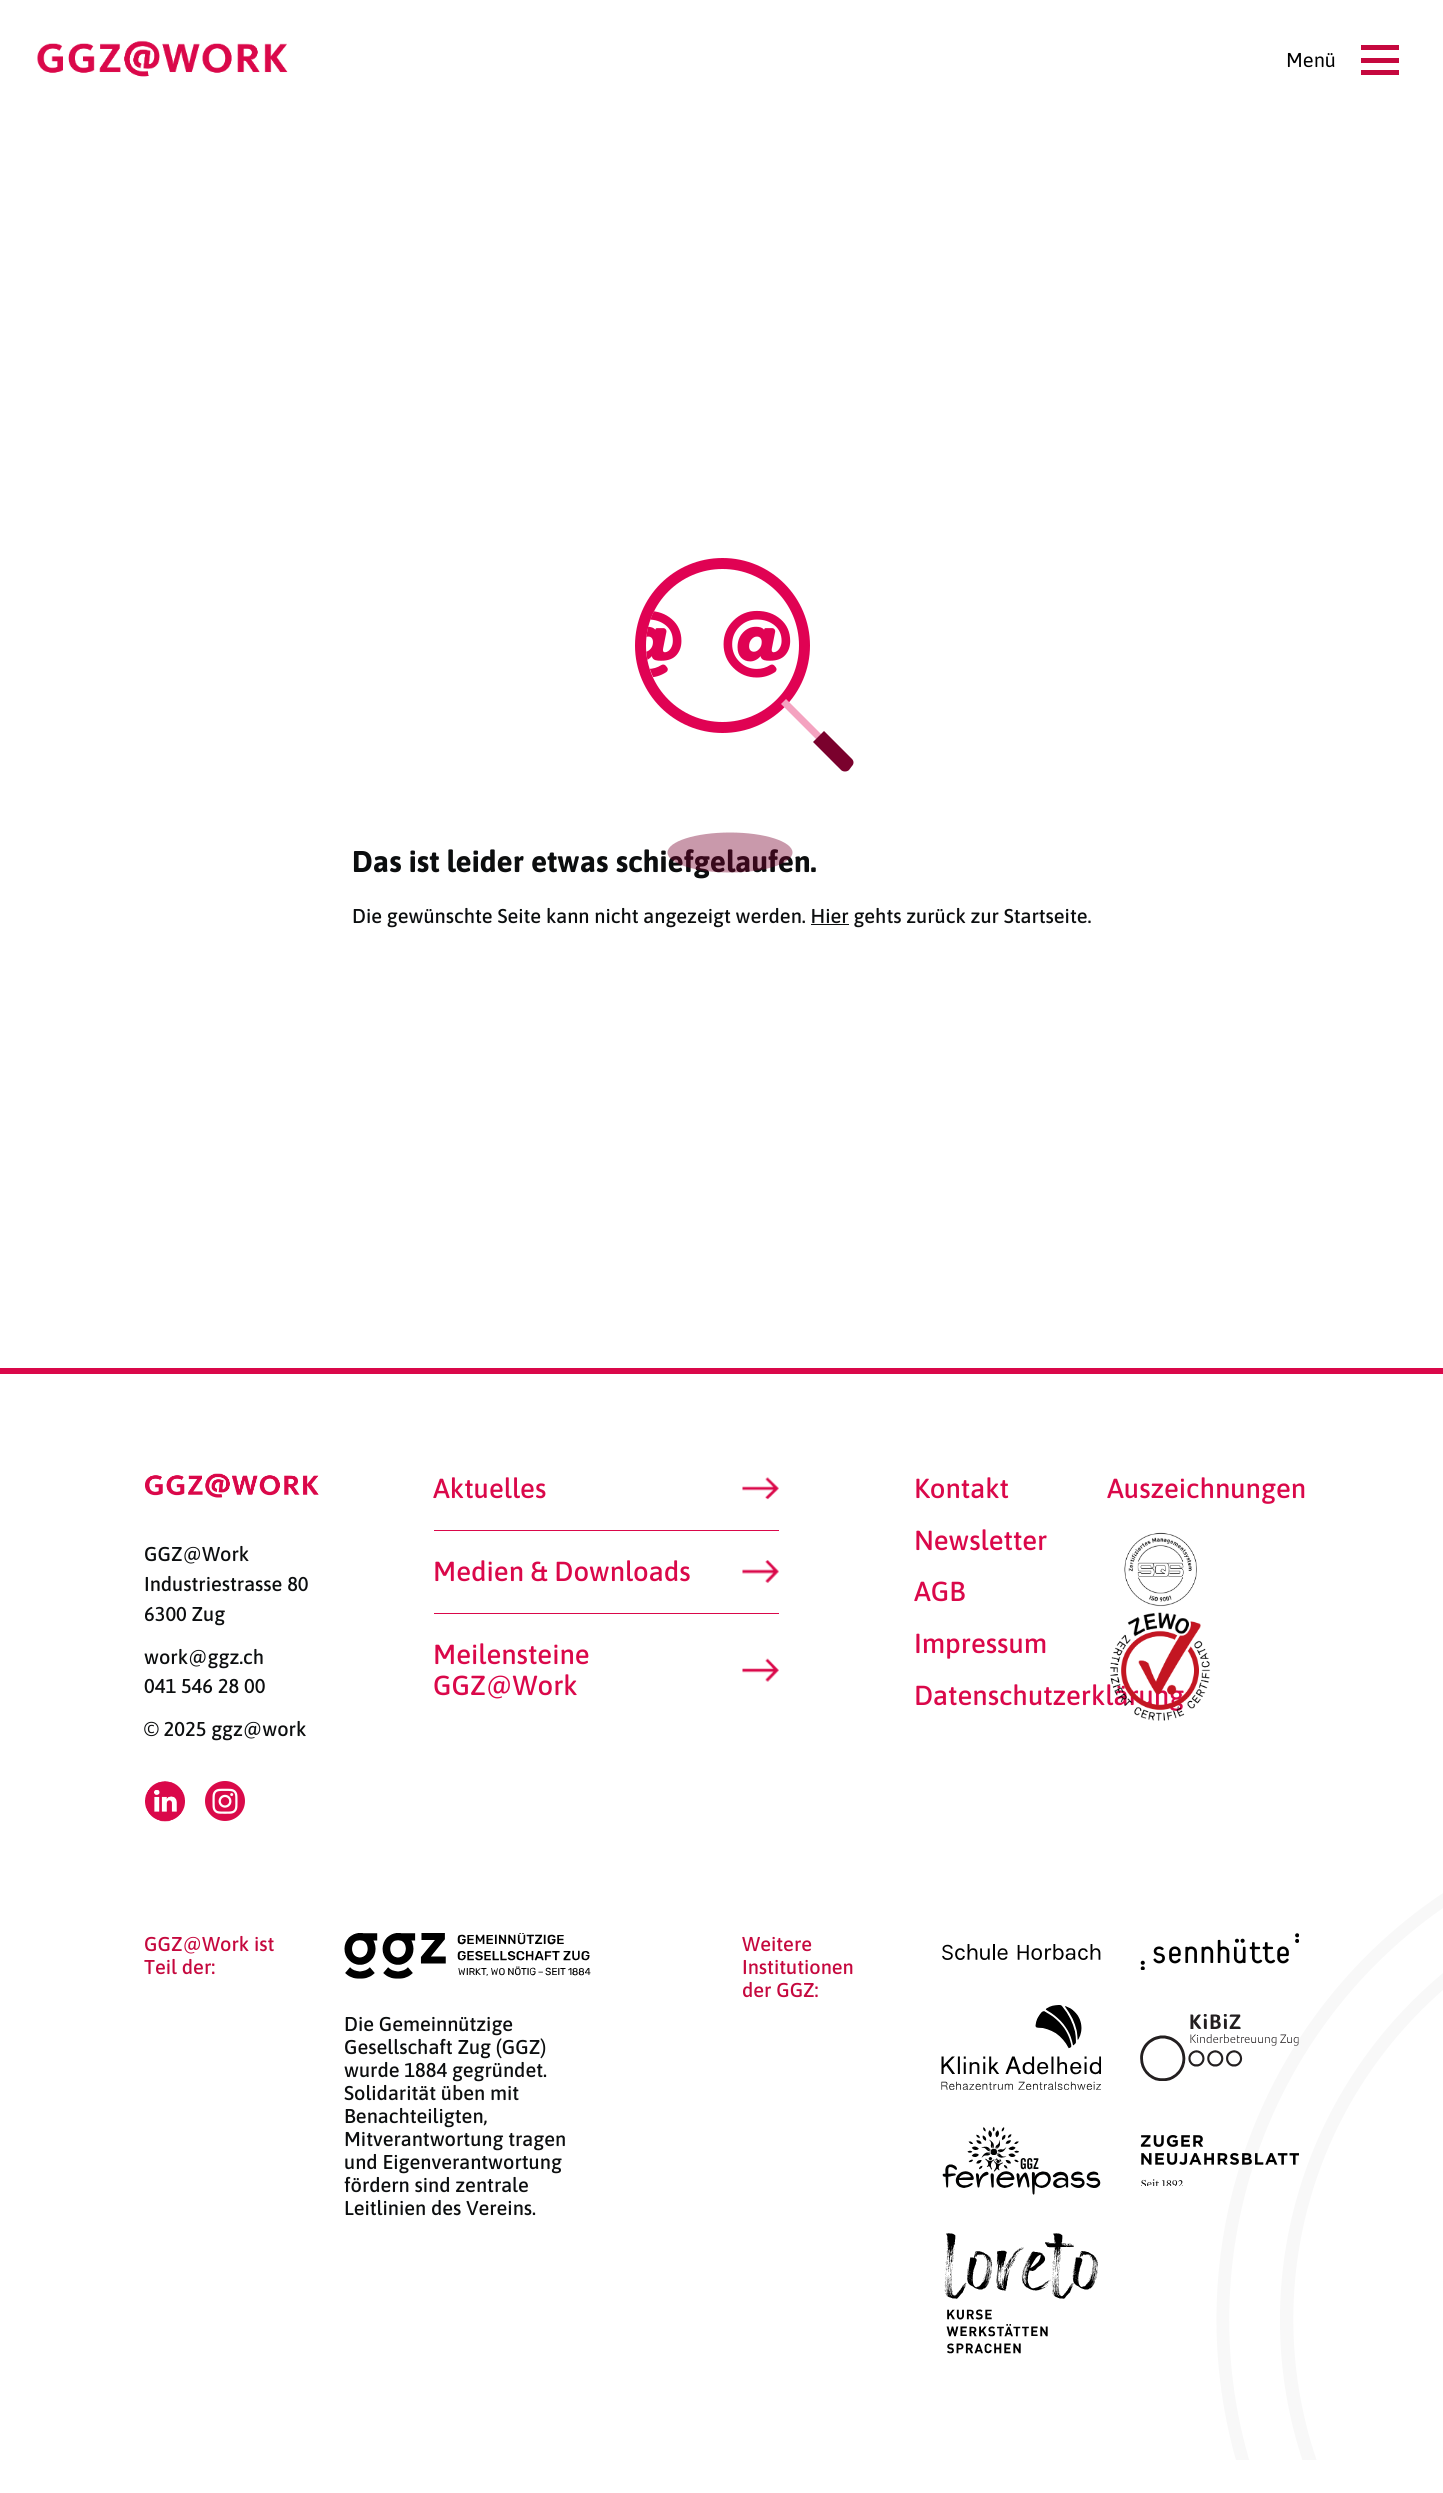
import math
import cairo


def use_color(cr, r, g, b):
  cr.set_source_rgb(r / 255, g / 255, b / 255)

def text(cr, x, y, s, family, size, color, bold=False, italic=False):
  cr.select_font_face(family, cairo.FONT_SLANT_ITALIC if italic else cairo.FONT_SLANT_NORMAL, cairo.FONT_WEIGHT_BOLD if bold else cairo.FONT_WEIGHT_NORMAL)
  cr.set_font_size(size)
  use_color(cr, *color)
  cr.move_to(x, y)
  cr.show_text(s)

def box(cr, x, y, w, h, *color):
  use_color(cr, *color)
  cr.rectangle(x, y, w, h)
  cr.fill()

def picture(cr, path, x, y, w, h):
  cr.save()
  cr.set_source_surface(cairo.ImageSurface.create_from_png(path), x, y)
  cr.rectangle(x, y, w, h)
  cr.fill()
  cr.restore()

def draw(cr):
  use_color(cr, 255, 255, 255)
  cr.paint()
  picture(cr, "img_01.png", 37, 40, 251, 37)
  box(cr, 1361, 45, 38, 5, 197, 8, 62)
  box(cr, 1361, 58, 38, 5, 197, 8, 62)
  box(cr, 1361, 70, 38, 5, 197, 8, 62)
  cr.arc(722.5, 645.5, 82, 0, 2 * math.pi)
  use_color(cr, 224, 2, 83)
  cr.set_line_width(11)
  cr.stroke()
  picture(cr, "img_02.png", 646, 611, 36, 67)
  picture(cr, "img_03.png", 723, 610, 68, 68)
  use_color(cr, 244, 163, 192)
  cr.new_path()
  cr.move_to(786, 699)
  cr.line_to(830, 743)
  cr.line_to(825, 748)
  cr.line_to(781, 704)
  cr.close_path()
  cr.fill()
  use_color(cr, 122, 1, 45)
  cr.new_path()
  cr.move_to(824, 731)
  cr.line_to(852, 759)
  cr.curve_to(854, 761, 854, 764, 852, 766)
  cr.line_to(849, 770)
  cr.curve_to(847, 772, 843, 772, 841, 770)
  cr.line_to(813, 742)
  cr.close_path()
  cr.fill()
  box(cr, 811, 924, 38, 1, 12, 14, 15)
  box(cr, 0, 1368, 1443, 6, 218, 8, 74)
  box(cr, 434, 1530, 345, 1, 218, 8, 74)
  picture(cr, "img_04.png", 742, 1477, 37, 23)
  box(cr, 434, 1613, 345, 1, 218, 8, 74)
  picture(cr, "img_05.png", 742, 1560, 37, 23)
  picture(cr, "img_06.png", 742, 1658, 37, 24)
  picture(cr, "img_07.png", 1124, 1532, 73, 75)
  picture(cr, "img_09.png", 145, 1473, 174, 25)
  picture(cr, "img_10.png", 145, 1781, 40, 41)
  picture(cr, "img_11.png", 205, 1781, 40, 40)
  picture(cr, "img_12.png", 942, 1944, 159, 16)
  cr.save()
  cr.rectangle(1216, 1893, 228, 567)
  cr.clip()
  use_color(cr, 248, 248, 248)
  cr.new_path()
  cr.move_to(1327, 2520)
  cr.curve_to(1234, 2333, 1282, 2107, 1443, 1973)
  cr.line_to(1443, 1990)
  cr.curve_to(1291, 2123, 1250, 2341, 1342, 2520)
  cr.close_path()
  cr.move_to(1257, 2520)
  cr.curve_to(1162, 2295, 1238, 2030, 1443, 1893)
  cr.line_to(1443, 1908)
  cr.curve_to(1247, 2045, 1176, 2303, 1271, 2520)
  cr.close_path()
  cr.fill()
  cr.restore()
  picture(cr, "img_13.png", 1140, 1933, 159, 37)
  picture(cr, "img_14.png", 941, 2005, 160, 85)
  picture(cr, "img_15.png", 1140, 2014, 159, 67)
  picture(cr, "img_16.png", 942, 2126, 159, 69)
  picture(cr, "img_17.png", 1140, 2135, 159, 51)
  picture(cr, "img_18.png", 944, 2233, 154, 121)
  picture(cr, "img_19.png", 344, 1933, 247, 46)
  text(cr, 1286, 67, "Menü", "Asap", 20, (0, 0, 0))
  text(cr, 352, 872, "Das ist leider etwas schiefgelaufen.", "Asap", 30, (12, 14, 15), bold=True)
  cr.set_source_rgba(0.478, 0.004, 0.176, 0.4)
  cr.new_path()
  cr.move_to(730, 832.5)
  cr.curve_to(764.5, 832.5, 792.5, 841.5, 792.5, 852.5)
  cr.curve_to(792.5, 863.5, 764.5, 872.5, 730, 872.5)
  cr.curve_to(695.5, 872.5, 667.5, 863.5, 667.5, 852.5)
  cr.curve_to(667.5, 841.5, 695.5, 832.5, 730, 832.5)
  cr.close_path()
  cr.fill()
  text(cr, 352, 923, "Die gewünschte Seite kann nicht angezeigt werden. Hier gehts zurück zur Startseite.", "Asap Medium", 20, (12, 14, 15))
  text(cr, 433, 1498, "Aktuelles", "Asap Medium", 27.5, (218, 8, 74))
  text(cr, 433, 1581, "Medien & Downloads", "Asap Medium", 27.5, (218, 8, 74))
  text(cr, 433, 1664, "Meilensteine", "Asap Medium", 27.5, (218, 8, 74))
  text(cr, 433, 1695, "GGZ@Work", "Asap Medium", 27.5, (218, 8, 74))
  text(cr, 914, 1498, "Kontakt", "Asap Medium", 27.5, (218, 8, 74))
  text(cr, 914, 1550, "Newsletter", "Asap Medium", 27.5, (218, 8, 74))
  text(cr, 914, 1601, "AGB", "Asap Medium", 27.5, (218, 8, 74))
  text(cr, 914, 1653, "Impressum", "Asap Medium", 27.5, (218, 8, 74))
  text(cr, 914, 1705, "Datenschutzerklärung", "Asap Medium", 27.5, (218, 8, 74))
  text(cr, 1107, 1498, "Auszeichnungen", "Asap Medium", 27.5, (218, 8, 74))
  picture(cr, "img_08.png", 1110, 1612, 101, 109)
  text(cr, 144, 1561, "GGZ@Work", "Asap Medium", 20, (12, 14, 15))
  text(cr, 144, 1591, "Industriestrasse 80", "Asap Medium", 20, (12, 14, 15))
  text(cr, 144, 1621, "6300 Zug", "Asap Medium", 20, (12, 14, 15))
  text(cr, 144, 1664, "work@ggz.ch", "Asap Medium", 20, (12, 14, 15))
  text(cr, 144, 1693, "041 546 28 00", "Asap Medium", 20, (12, 14, 15))
  text(cr, 144, 1736, "© 2025 ggz@work", "Asap Medium", 20, (12, 14, 15))
  text(cr, 144, 1951, "GGZ@Work ist", "Asap Medium", 20, (197, 8, 62))
  text(cr, 144, 1974, "Teil der:", "Asap Medium", 20, (197, 8, 62))
  text(cr, 742, 1951, "Weitere", "Asap Medium", 20, (197, 8, 62))
  text(cr, 742, 1974, "Institutionen", "Asap Medium", 20, (197, 8, 62))
  text(cr, 742, 1997, "der GGZ:", "Asap Medium", 20, (197, 8, 62))
  text(cr, 344, 2031, "Die Gemeinnützige", "Asap Medium", 20, (12, 14, 15))
  text(cr, 344, 2054, "Gesellschaft Zug (GGZ)", "Asap Medium", 20, (12, 14, 15))
  text(cr, 344, 2077, "wurde 1884 gegründet.", "Asap Medium", 20, (12, 14, 15))
  text(cr, 344, 2100, "Solidarität üben mit", "Asap Medium", 20, (12, 14, 15))
  text(cr, 344, 2123, "Benachteiligten,", "Asap Medium", 20, (12, 14, 15))
  text(cr, 344, 2146, "Mitverantwortung tragen", "Asap Medium", 20, (12, 14, 15))
  text(cr, 344, 2169, "und Eigenverantwortung", "Asap Medium", 20, (12, 14, 15))
  text(cr, 344, 2192, "fördern sind zentrale", "Asap Medium", 20, (12, 14, 15))
  text(cr, 344, 2215, "Leitlinien des Vereins.", "Asap Medium", 20, (12, 14, 15))


surface = cairo.ImageSurface(cairo.FORMAT_RGB24, 1443, 2493)
cr = cairo.Context(surface)
options = cairo.FontOptions()
options.set_hint_metrics(cairo.HINT_METRICS_OFF)
options.set_hint_style(cairo.HINT_STYLE_NONE)
cr.set_font_options(options)
cr.set_miter_limit(4)
draw(cr)
surface.write_to_png("out.png")
